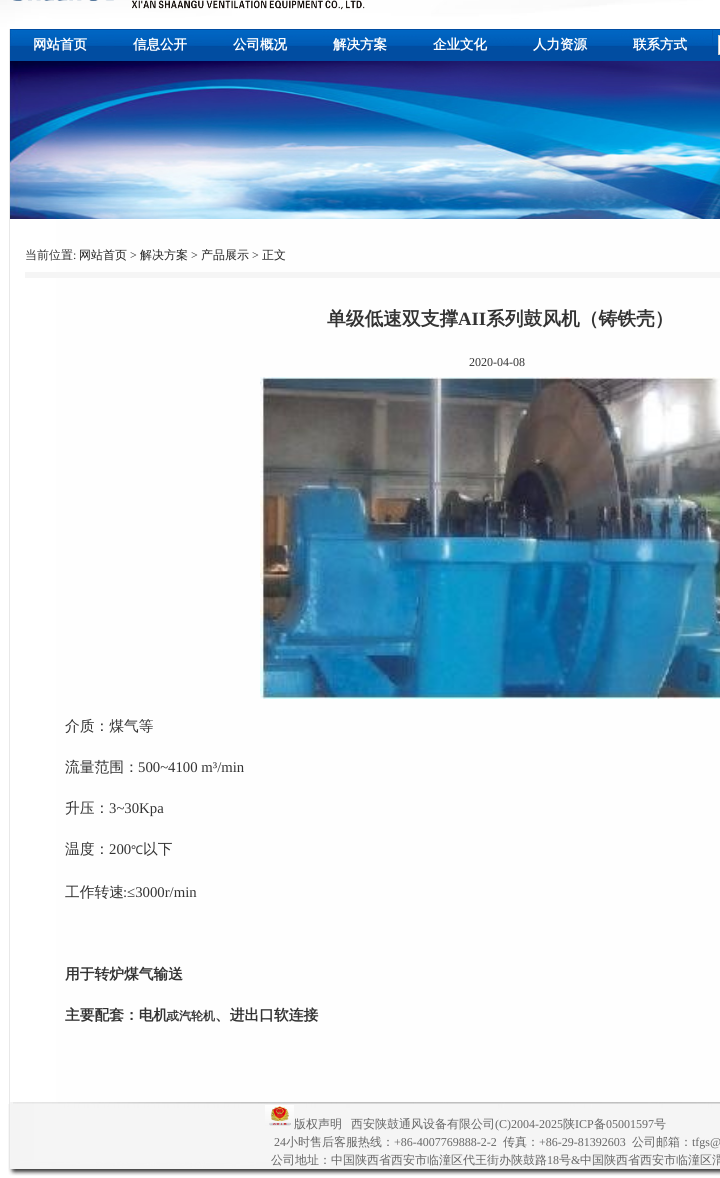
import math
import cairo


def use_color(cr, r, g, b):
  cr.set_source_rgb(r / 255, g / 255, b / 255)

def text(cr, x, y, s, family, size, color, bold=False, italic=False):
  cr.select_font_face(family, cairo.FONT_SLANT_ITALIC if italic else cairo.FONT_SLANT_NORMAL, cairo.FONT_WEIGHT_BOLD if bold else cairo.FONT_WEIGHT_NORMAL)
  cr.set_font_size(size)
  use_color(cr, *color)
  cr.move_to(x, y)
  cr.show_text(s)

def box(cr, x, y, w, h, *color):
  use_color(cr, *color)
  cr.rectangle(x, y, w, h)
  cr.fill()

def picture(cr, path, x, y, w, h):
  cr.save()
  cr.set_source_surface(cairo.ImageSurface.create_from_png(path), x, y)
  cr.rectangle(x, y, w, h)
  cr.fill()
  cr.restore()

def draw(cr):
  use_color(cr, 255, 255, 255)
  cr.paint()
  picture(cr, "img_01.png", 0, 0, 720, 29)
  picture(cr, "img_02.png", 13, 0, 352, 10)
  picture(cr, "img_03.png", 0, 29, 10, 190)
  picture(cr, "img_04.png", 10, 29, 702, 32)
  picture(cr, "img_05.png", 712, 29, 8, 32)
  use_color(cr, 255, 255, 255)
  cr.rectangle(718.5, 35.5, 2, 19)
  cr.fill_preserve()
  use_color(cr, 204, 205, 207)
  cr.set_line_width(1)
  cr.stroke()
  picture(cr, "img_06.png", 10, 61, 710, 158)
  picture(cr, "img_07.png", 0, 219, 720, 20)
  picture(cr, "img_08.png", 0, 239, 720, 853)
  box(cr, 25, 272, 695, 6, 245, 245, 245)
  picture(cr, "img_09.png", 260, 377, 460, 322)
  picture(cr, "img_10.png", 0, 1092, 720, 10)
  picture(cr, "img_11.png", 0, 1102, 10, 2)
  picture(cr, "img_12.png", 10, 1102, 710, 2)
  picture(cr, "img_13.png", 0, 1104, 720, 74)
  picture(cr, "img_14.png", 265, 1105, 29, 21)
  text(cr, 33, 49, "网站首页", "WenQuanYi Zen Hei", 13.5, (255, 255, 255), bold=True)
  text(cr, 133, 49, "信息公开", "WenQuanYi Zen Hei", 13.5, (255, 255, 255), bold=True)
  text(cr, 233, 49, "公司概况", "WenQuanYi Zen Hei", 13.5, (255, 255, 255), bold=True)
  text(cr, 333, 49, "解决方案", "WenQuanYi Zen Hei", 13.5, (255, 255, 255), bold=True)
  text(cr, 433, 49, "企业文化", "WenQuanYi Zen Hei", 13.5, (255, 255, 255), bold=True)
  text(cr, 533, 49, "人力资源", "WenQuanYi Zen Hei", 13.5, (255, 255, 255), bold=True)
  text(cr, 633, 49, "联系方式", "WenQuanYi Zen Hei", 13.5, (255, 255, 255), bold=True)
  text(cr, 25, 259, "当前位置", "WenQuanYi Zen Hei Medium", 12, (51, 51, 51))
  text(cr, 73, 259, ":", "Liberation Serif", 12, (51, 51, 51))
  text(cr, 79, 259, "网站首页", "WenQuanYi Zen Hei Medium", 12, (34, 34, 34))
  text(cr, 130, 259, ">", "Liberation Serif", 12, (34, 34, 34))
  text(cr, 140, 259, "解决方案", "WenQuanYi Zen Hei Medium", 12, (34, 34, 34))
  text(cr, 191, 259, ">", "Liberation Serif", 12, (34, 34, 34))
  text(cr, 201, 259, "产品展示", "WenQuanYi Zen Hei Medium", 12, (34, 34, 34))
  text(cr, 252, 259, ">", "Liberation Serif", 12, (34, 34, 34))
  text(cr, 262, 259, "正文", "WenQuanYi Zen Hei Medium", 12, (34, 34, 34))
  text(cr, 327, 325, "单级低速双支撑", "WenQuanYi Zen Hei", 18.75, (51, 51, 51), bold=True)
  text(cr, 458, 325, "AII", "Liberation Serif", 18.75, (51, 51, 51), bold=True)
  text(cr, 486, 325, "系列鼓风机（铸铁壳）", "WenQuanYi Zen Hei", 18.75, (51, 51, 51), bold=True)
  text(cr, 469, 366, "2020-04-08", "Liberation Serif", 12, (51, 51, 51))
  text(cr, 65, 731, "介质：煤气等", "WenQuanYi Zen Hei Medium", 14.75, (51, 51, 51))
  text(cr, 65, 772, "流量范围：", "WenQuanYi Zen Hei Medium", 14.75, (51, 51, 51))
  text(cr, 138, 772, "500~4100 m³/min", "Liberation Serif", 14.75, (51, 51, 51))
  text(cr, 65, 813, "升压：", "WenQuanYi Zen Hei Medium", 14.75, (51, 51, 51))
  text(cr, 109, 813, "3~30Kpa", "Liberation Serif", 14.75, (51, 51, 51))
  text(cr, 65, 854, "温度：", "WenQuanYi Zen Hei Medium", 14.75, (51, 51, 51))
  text(cr, 109, 854, "200", "Liberation Serif", 14.75, (51, 51, 51))
  text(cr, 131, 854, "℃", "Noto Sans", 12, (51, 51, 51))
  text(cr, 143, 854, "以下", "WenQuanYi Zen Hei Medium", 14.75, (51, 51, 51))
  text(cr, 65, 897, "工作转速", "WenQuanYi Zen Hei Medium", 14.75, (51, 51, 51))
  text(cr, 123, 897, ":≤3000r/min", "Liberation Serif", 14.75, (51, 51, 51))
  text(cr, 65, 979, "用于转炉煤气输送", "WenQuanYi Zen Hei", 14.75, (51, 51, 51), bold=True)
  text(cr, 65, 1020, "主要配套：电机", "WenQuanYi Zen Hei", 14.75, (51, 51, 51), bold=True)
  text(cr, 167, 1020, "或汽轮机", "WenQuanYi Zen Hei", 12, (51, 51, 51), bold=True)
  text(cr, 215, 1020, "、进出口软连接", "WenQuanYi Zen Hei", 14.75, (51, 51, 51), bold=True)
  text(cr, 294, 1128, "版权声明", "WenQuanYi Zen Hei Medium", 12, (102, 102, 102))
  text(cr, 351, 1128, "西安陕鼓通风设备有限公司", "WenQuanYi Zen Hei Medium", 12, (102, 102, 102))
  text(cr, 495, 1128, "(C)2004-2025", "Liberation Serif", 12, (102, 102, 102))
  text(cr, 563, 1128, "陕", "WenQuanYi Zen Hei Medium", 12, (102, 102, 102))
  text(cr, 575, 1128, "ICP", "Liberation Serif", 12, (102, 102, 102))
  text(cr, 594, 1128, "备", "WenQuanYi Zen Hei Medium", 12, (102, 102, 102))
  text(cr, 606, 1128, "05001597", "Liberation Serif", 12, (102, 102, 102))
  text(cr, 654, 1128, "号", "WenQuanYi Zen Hei Medium", 12, (102, 102, 102))
  text(cr, 274, 1146, "24", "Liberation Serif", 12, (102, 102, 102))
  text(cr, 286, 1146, "小时售后客服热线：", "WenQuanYi Zen Hei Medium", 12, (102, 102, 102))
  text(cr, 394, 1146, "+86-4007769888-2-2", "Liberation Serif", 12, (102, 102, 102))
  text(cr, 503, 1146, "传真：", "WenQuanYi Zen Hei Medium", 12, (102, 102, 102))
  text(cr, 539, 1146, "+86-29-81392603", "Liberation Serif", 12, (102, 102, 102))
  text(cr, 632, 1146, "公司邮箱：", "WenQuanYi Zen Hei Medium", 12, (102, 102, 102))
  text(cr, 692, 1146, "tfgs@", "Liberation Serif", 12, (102, 102, 102))
  text(cr, 271, 1164, "公司地址：中国陕西省西安市临潼区代王街办陕鼓路", "WenQuanYi Zen Hei Medium", 12, (102, 102, 102))
  text(cr, 547, 1164, "18", "Liberation Serif", 12, (102, 102, 102))
  text(cr, 559, 1164, "号", "WenQuanYi Zen Hei Medium", 12, (102, 102, 102))
  text(cr, 571, 1164, "&", "Liberation Serif", 12, (102, 102, 102))
  text(cr, 580, 1164, "中国陕西省西安市临潼区渭", "WenQuanYi Zen Hei Medium", 12, (102, 102, 102))


surface = cairo.ImageSurface(cairo.FORMAT_RGB24, 720, 1178)
cr = cairo.Context(surface)
options = cairo.FontOptions()
options.set_hint_metrics(cairo.HINT_METRICS_OFF)
options.set_hint_style(cairo.HINT_STYLE_NONE)
cr.set_font_options(options)
cr.set_miter_limit(4)
draw(cr)
surface.write_to_png("out.png")
